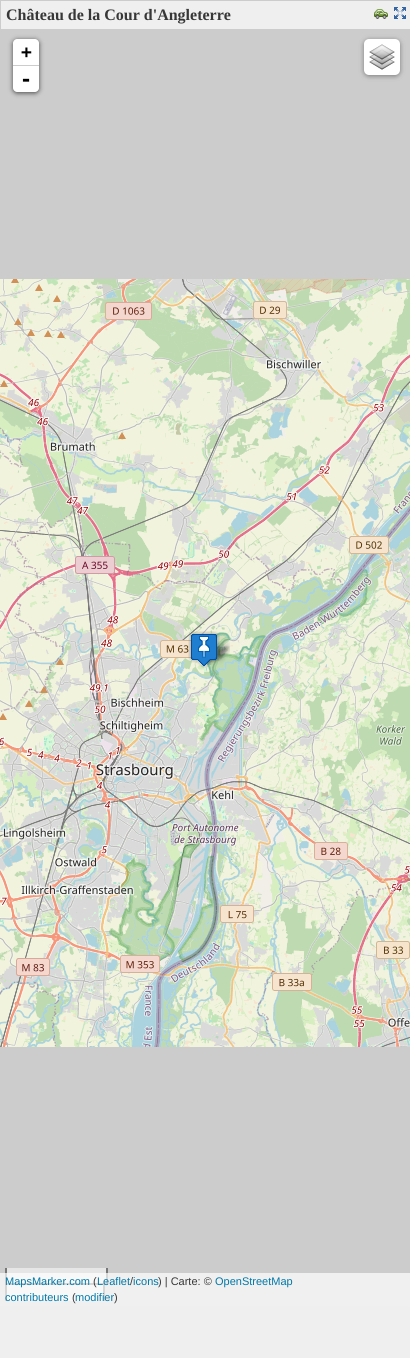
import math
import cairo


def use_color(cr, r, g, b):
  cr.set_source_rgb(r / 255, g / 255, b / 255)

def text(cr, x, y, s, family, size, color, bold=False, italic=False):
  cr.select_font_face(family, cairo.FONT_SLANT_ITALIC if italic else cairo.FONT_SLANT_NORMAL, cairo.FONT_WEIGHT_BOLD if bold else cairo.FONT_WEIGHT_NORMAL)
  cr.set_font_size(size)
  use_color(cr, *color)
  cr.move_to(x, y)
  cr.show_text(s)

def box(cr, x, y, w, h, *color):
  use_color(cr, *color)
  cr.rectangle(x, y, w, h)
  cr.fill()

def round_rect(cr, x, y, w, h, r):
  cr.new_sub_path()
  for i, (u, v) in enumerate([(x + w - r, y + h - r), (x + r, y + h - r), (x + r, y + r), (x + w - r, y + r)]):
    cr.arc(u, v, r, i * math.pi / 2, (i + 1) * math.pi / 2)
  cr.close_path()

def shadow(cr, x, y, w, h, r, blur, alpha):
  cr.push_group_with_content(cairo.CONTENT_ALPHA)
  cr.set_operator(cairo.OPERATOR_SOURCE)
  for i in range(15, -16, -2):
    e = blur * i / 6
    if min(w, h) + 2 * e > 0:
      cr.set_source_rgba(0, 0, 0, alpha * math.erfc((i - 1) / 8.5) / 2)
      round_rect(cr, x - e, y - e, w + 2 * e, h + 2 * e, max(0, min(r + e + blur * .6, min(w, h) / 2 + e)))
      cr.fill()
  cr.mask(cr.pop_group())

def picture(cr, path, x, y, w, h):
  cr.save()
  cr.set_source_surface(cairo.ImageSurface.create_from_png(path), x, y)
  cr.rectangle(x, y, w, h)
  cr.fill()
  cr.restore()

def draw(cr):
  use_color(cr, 239, 239, 239)
  cr.paint()
  box(cr, 0, 0, 410, 1, 204, 204, 204)
  box(cr, 0, 0, 1, 29, 204, 204, 204)
  picture(cr, "img_01.png", 374, 9, 14, 10)
  picture(cr, "img_02.png", 394, 7, 12, 12)
  box(cr, 0, 29, 410, 1277, 204, 204, 204)
  box(cr, 7, 1285, 96, 16, 230, 230, 230)
  use_color(cr, 0, 0, 0)
  shadow(cr, 13, 40, 26, 53, 4, 2.5, 0.65)
  use_color(cr, 255, 255, 255)
  cr.new_path()
  cr.move_to(17, 39)
  cr.line_to(35, 39)
  cr.curve_to(37, 39, 39, 41, 39, 43)
  cr.line_to(39, 66)
  cr.line_to(13, 66)
  cr.line_to(13, 43)
  cr.curve_to(13, 41, 15, 39, 17, 39)
  cr.close_path()
  cr.fill()
  box(cr, 13, 65, 26, 1, 204, 204, 204)
  use_color(cr, 255, 255, 255)
  cr.new_path()
  cr.move_to(13, 66)
  cr.line_to(39, 66)
  cr.line_to(39, 88)
  cr.curve_to(39, 90, 37, 92, 35, 92)
  cr.line_to(17, 92)
  cr.curve_to(15, 92, 13, 90, 13, 88)
  cr.close_path()
  cr.fill()
  use_color(cr, 0, 0, 0)
  shadow(cr, 364, 40, 36, 36, 5, 2.5, 0.4)
  use_color(cr, 255, 255, 255)
  round_rect(cr, 364, 39, 36, 36, 5)
  cr.fill()
  picture(cr, "img_03.png", 369, 44, 26, 26)
  box(cr, 7, 1268, 99, 15, 230, 230, 230)
  box(cr, 106, 1268, 2, 17, 119, 119, 119)
  box(cr, 105, 1283, 3, 2, 119, 119, 119)
  box(cr, 5, 1268, 2, 17, 119, 119, 119)
  box(cr, 5, 1283, 100, 2, 119, 119, 119)
  box(cr, 103, 1283, 2, 18, 119, 119, 119)
  box(cr, 5, 1283, 2, 18, 119, 119, 119)
  cr.set_source_rgba(1, 1, 1, 0.7)
  cr.rectangle(0, 1273, 410, 33)
  cr.fill()
  picture(cr, "img_04.png", 0, 279, 111, 256)
  picture(cr, "img_05.png", 111, 279, 256, 256)
  picture(cr, "img_06.png", 367, 279, 43, 256)
  picture(cr, "img_07.png", 0, 535, 111, 256)
  picture(cr, "img_08.png", 111, 535, 256, 256)
  picture(cr, "img_09.png", 367, 535, 43, 256)
  picture(cr, "img_10.png", 0, 791, 111, 256)
  picture(cr, "img_11.png", 111, 791, 256, 256)
  picture(cr, "img_12.png", 367, 791, 43, 256)
  picture(cr, "img_14.png", 206, 641, 24, 24)
  picture(cr, "img_13.png", 188, 631, 32, 37)
  text(cr, 6, 20, "Château de la Cour d'Angleterre", "Liberation Serif", 16, (55, 55, 55), bold=True)
  text(cr, 21, 58, "+", "DejaVu Sans Mono", 18, (0, 0, 0), bold=True)
  text(cr, 20, 86, "-", "DejaVu Sans Mono", 20, (0, 0, 0), bold=True)
  text(cr, 5, 1285, "MapsMarker.com", "Liberation Sans", 11, (0, 120, 168))
  text(cr, 93, 1285, "(", "Liberation Sans", 11, (55, 55, 55))
  text(cr, 97, 1285, "Leaflet icons", "Liberation Sans", 11, (0, 120, 168))
  text(cr, 130, 1285, "/", "Liberation Sans", 11, (55, 55, 55))
  text(cr, 158, 1285, ") | Carte: ©", "Liberation Sans", 11, (55, 55, 55))
  text(cr, 215, 1285, "OpenStreetMap", "Liberation Sans", 11, (0, 120, 168))
  text(cr, 5, 1301, "contributeurs", "Liberation Sans", 11, (0, 120, 168))
  text(cr, 72, 1301, "(", "Liberation Sans", 11, (55, 55, 55))
  text(cr, 75, 1301, "modifier", "Liberation Sans", 11, (0, 120, 168))
  text(cr, 114, 1301, ")", "Liberation Sans", 11, (55, 55, 55))


surface = cairo.ImageSurface(cairo.FORMAT_RGB24, 410, 1358)
cr = cairo.Context(surface)
options = cairo.FontOptions()
options.set_hint_metrics(cairo.HINT_METRICS_OFF)
options.set_hint_style(cairo.HINT_STYLE_NONE)
cr.set_font_options(options)
cr.set_miter_limit(4)
draw(cr)
surface.write_to_png("out.png")
